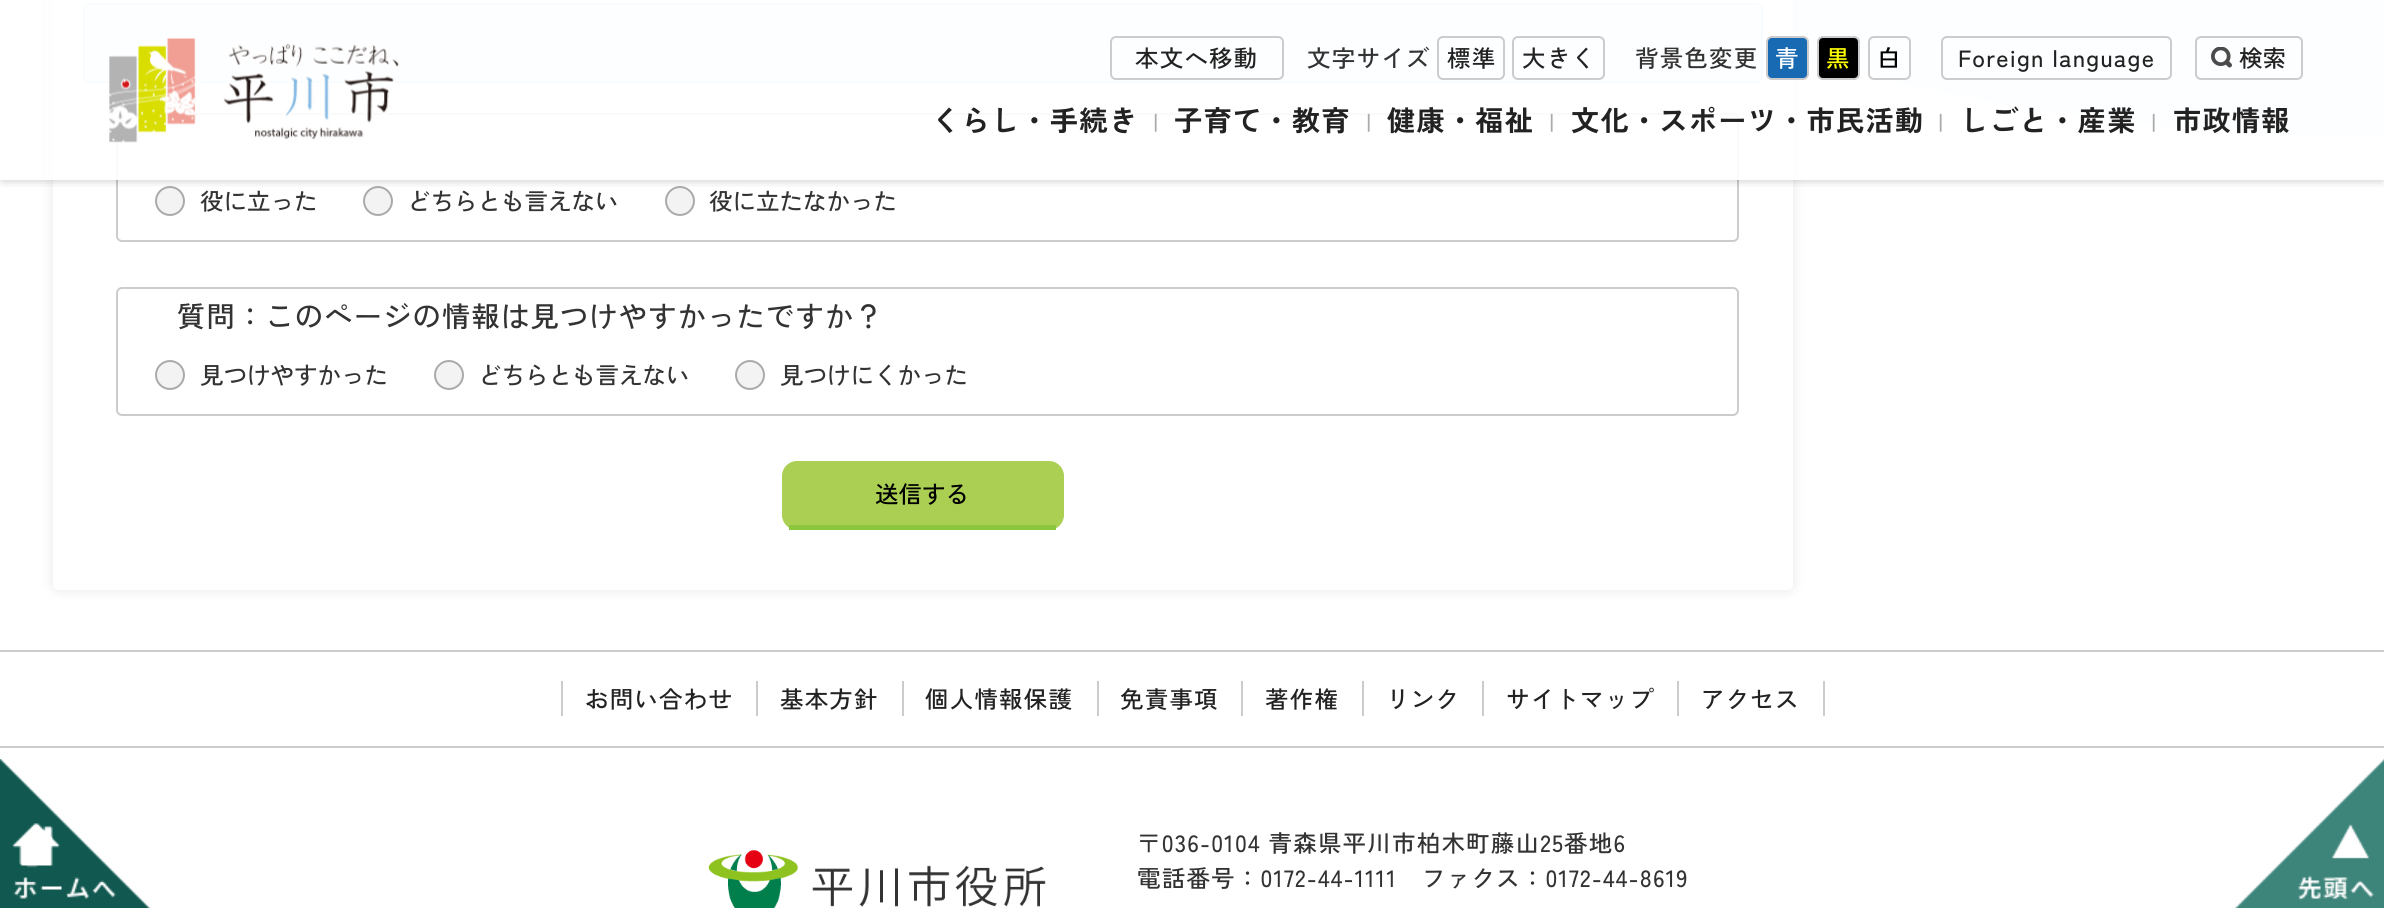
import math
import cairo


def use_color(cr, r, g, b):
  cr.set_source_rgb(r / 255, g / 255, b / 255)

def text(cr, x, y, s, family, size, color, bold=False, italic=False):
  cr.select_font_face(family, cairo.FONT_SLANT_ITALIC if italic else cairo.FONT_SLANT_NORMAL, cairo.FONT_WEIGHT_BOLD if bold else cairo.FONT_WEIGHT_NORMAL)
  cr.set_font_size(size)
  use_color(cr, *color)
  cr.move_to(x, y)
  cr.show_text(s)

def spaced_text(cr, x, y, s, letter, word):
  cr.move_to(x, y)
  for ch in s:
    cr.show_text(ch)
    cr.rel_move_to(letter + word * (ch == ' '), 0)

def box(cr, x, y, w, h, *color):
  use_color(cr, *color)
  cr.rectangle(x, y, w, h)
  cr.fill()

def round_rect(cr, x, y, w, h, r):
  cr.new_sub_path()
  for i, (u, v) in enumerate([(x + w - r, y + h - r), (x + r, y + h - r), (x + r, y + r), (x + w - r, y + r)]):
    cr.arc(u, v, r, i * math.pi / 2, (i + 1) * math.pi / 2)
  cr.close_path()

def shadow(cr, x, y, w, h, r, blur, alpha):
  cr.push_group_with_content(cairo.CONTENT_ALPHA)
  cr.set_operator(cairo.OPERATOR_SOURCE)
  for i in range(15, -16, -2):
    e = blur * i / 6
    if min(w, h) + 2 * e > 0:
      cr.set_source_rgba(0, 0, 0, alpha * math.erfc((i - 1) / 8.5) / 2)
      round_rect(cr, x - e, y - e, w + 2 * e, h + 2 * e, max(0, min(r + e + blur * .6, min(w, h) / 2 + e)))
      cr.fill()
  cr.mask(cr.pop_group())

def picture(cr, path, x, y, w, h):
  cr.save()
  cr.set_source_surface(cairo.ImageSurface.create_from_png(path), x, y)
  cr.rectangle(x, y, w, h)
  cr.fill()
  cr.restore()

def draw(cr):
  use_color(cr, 255, 255, 255)
  cr.paint()
  picture(cr, "img_03.png", 1622, 0, 762, 138)
  cr.save()
  cr.set_fill_rule(cairo.FILL_RULE_EVEN_ODD)
  cr.new_path()
  cr.move_to(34, 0)
  cr.line_to(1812, 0)
  cr.line_to(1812, 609)
  cr.line_to(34, 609)
  cr.close_path()
  cr.move_to(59, -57)
  cr.line_to(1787, -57)
  cr.curve_to(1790.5, -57, 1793, -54.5, 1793, -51)
  cr.line_to(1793, 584)
  cr.curve_to(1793, 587.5, 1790.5, 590, 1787, 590)
  cr.line_to(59, 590)
  cr.curve_to(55.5, 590, 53, 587.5, 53, 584)
  cr.line_to(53, -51)
  cr.curve_to(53, -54.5, 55.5, -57, 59, -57)
  cr.close_path()
  cr.clip()
  use_color(cr, 0, 0, 0)
  shadow(cr, 53, -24, 1740, 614, 6, 6, 0.1)
  cr.restore()
  cr.set_source_rgba(1, 1, 1, 0.95)
  round_rect(cr, 53, -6, 1740, 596, 6)
  cr.fill()
  use_color(cr, 230, 247, 255)
  round_rect(cr, 84, 4, 1678, 78, 5)
  cr.fill_preserve()
  use_color(cr, 190, 228, 245)
  cr.stroke()
  round_rect(cr, 117, 114, 1621, 127, 5)
  use_color(cr, 204, 204, 204)
  cr.stroke()
  use_color(cr, 243, 243, 243)
  cr.arc(170, 201, 14, 0, 2 * math.pi)
  cr.fill_preserve()
  use_color(cr, 170, 170, 170)
  cr.stroke()
  use_color(cr, 243, 243, 243)
  cr.arc(378, 201, 14, 0, 2 * math.pi)
  cr.fill_preserve()
  use_color(cr, 170, 170, 170)
  cr.stroke()
  use_color(cr, 243, 243, 243)
  cr.arc(680, 201, 14, 0, 2 * math.pi)
  cr.fill_preserve()
  use_color(cr, 170, 170, 170)
  cr.stroke()
  cr.save()
  cr.rectangle(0, 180, 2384, 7)
  cr.clip()
  use_color(cr, 0, 0, 0)
  shadow(cr, 3, 3, 2379, 174, 0, 6, 0.4)
  cr.restore()
  cr.set_source_rgba(1, 1, 1, 0.9)
  cr.rectangle(46, 0, 2338, 180)
  cr.fill()
  picture(cr, "img_01.png", 109, 38, 290, 105)
  round_rect(cr, 1111, 37, 172, 42, 5)
  use_color(cr, 204, 204, 204)
  cr.stroke()
  round_rect(cr, 1438, 37, 66, 42, 5)
  cr.stroke()
  round_rect(cr, 1513, 37, 91, 42, 5)
  cr.stroke()
  use_color(cr, 24, 106, 179)
  round_rect(cr, 1767, 37, 41, 42, 5)
  cr.fill_preserve()
  use_color(cr, 204, 204, 204)
  cr.stroke()
  use_color(cr, 0, 0, 0)
  round_rect(cr, 1818, 37, 41, 42, 5)
  cr.fill_preserve()
  use_color(cr, 204, 204, 204)
  cr.stroke()
  round_rect(cr, 1869, 37, 41, 42, 5)
  cr.stroke()
  round_rect(cr, 1942, 37, 229, 42, 5)
  cr.stroke()
  round_rect(cr, 2196, 37, 106, 42, 5)
  cr.stroke()
  picture(cr, "img_02.png", 2211, 47, 21, 21)
  round_rect(cr, 117, 288, 1621, 127, 5)
  cr.stroke()
  use_color(cr, 243, 243, 243)
  cr.arc(170, 375, 14, 0, 2 * math.pi)
  cr.fill_preserve()
  use_color(cr, 170, 170, 170)
  cr.stroke()
  use_color(cr, 243, 243, 243)
  cr.arc(449, 375, 14, 0, 2 * math.pi)
  cr.fill_preserve()
  use_color(cr, 170, 170, 170)
  cr.stroke()
  use_color(cr, 243, 243, 243)
  cr.arc(750, 375, 14, 0, 2 * math.pi)
  cr.fill_preserve()
  use_color(cr, 170, 170, 170)
  cr.stroke()
  use_color(cr, 170, 207, 82)
  round_rect(cr, 782, 461, 282, 69, 15)
  cr.fill()
  box(cr, 789, 525, 267, 5, 140, 198, 63)
  picture(cr, "img_04.png", 0, 759, 150, 149)
  box(cr, 0, 650, 2384, 2, 204, 204, 204)
  box(cr, 0, 746, 2384, 2, 204, 204, 204)
  box(cr, 561, 681, 2, 35, 204, 204, 204)
  box(cr, 756, 681, 2, 35, 204, 204, 204)
  box(cr, 902, 681, 2, 35, 204, 204, 204)
  box(cr, 1097, 681, 2, 35, 204, 204, 204)
  box(cr, 1241, 681, 2, 35, 204, 204, 204)
  box(cr, 1362, 681, 2, 35, 204, 204, 204)
  box(cr, 1482, 681, 2, 35, 204, 204, 204)
  box(cr, 1823, 681, 2, 35, 204, 204, 204)
  box(cr, 1677, 681, 2, 35, 204, 204, 204)
  picture(cr, "img_05.png", 708, 850, 338, 58)
  picture(cr, "img_06.png", 2235, 759, 149, 149)
  cr.select_font_face("Zen Kaku Gothic Antique Medium")
  cr.set_font_size(23.5)
  use_color(cr, 34, 34, 34)
  spaced_text(cr, 1135, 67, "本文へ移動", 1.2, 0)
  use_color(cr, 51, 51, 51)
  spaced_text(cr, 1307, 67, "文字サイズ", 1.2, 0)
  use_color(cr, 34, 34, 34)
  spaced_text(cr, 1447, 67, "標準", 1.2, 0)
  spaced_text(cr, 1522, 67, "大きく", 1.2, 0)
  use_color(cr, 51, 51, 51)
  spaced_text(cr, 1635, 67, "背景色変更", 1.2, 0)
  use_color(cr, 255, 255, 255)
  spaced_text(cr, 1775, 67, "青", 1.2, 0)
  use_color(cr, 255, 255, 0)
  spaced_text(cr, 1826, 67, "黒", 1.2, 0)
  use_color(cr, 0, 0, 0)
  spaced_text(cr, 1877, 67, "白", 1.2, 0)
  use_color(cr, 34, 34, 34)
  spaced_text(cr, 1958, 67, "Foreign language", 1.2, 0)
  text(cr, 2239, 67, "検索", "Zen Kaku Gothic Antique Medium", 23.5, (34, 34, 34))
  cr.select_font_face("Zen Kaku Gothic Antique", cairo.FONT_SLANT_NORMAL, cairo.FONT_WEIGHT_BOLD)
  cr.set_font_size(28.25)
  spaced_text(cr, 932, 131, "くらし・手続き", 1.2, 0)
  cr.select_font_face("Zen Kaku Gothic Antique Medium")
  cr.set_font_size(23.5)
  use_color(cr, 170, 170, 170)
  spaced_text(cr, 1153, 131, "|", 1.2, 0)
  cr.select_font_face("Zen Kaku Gothic Antique", cairo.FONT_SLANT_NORMAL, cairo.FONT_WEIGHT_BOLD)
  cr.set_font_size(28.25)
  use_color(cr, 34, 34, 34)
  spaced_text(cr, 1174, 131, "子育て・教育", 1.2, 0)
  cr.select_font_face("Zen Kaku Gothic Antique Medium")
  cr.set_font_size(23.5)
  use_color(cr, 170, 170, 170)
  spaced_text(cr, 1366, 131, "|", 1.2, 0)
  cr.select_font_face("Zen Kaku Gothic Antique", cairo.FONT_SLANT_NORMAL, cairo.FONT_WEIGHT_BOLD)
  cr.set_font_size(28.25)
  use_color(cr, 34, 34, 34)
  spaced_text(cr, 1387, 131, "健康・福祉", 1.2, 0)
  cr.select_font_face("Zen Kaku Gothic Antique Medium")
  cr.set_font_size(23.5)
  use_color(cr, 170, 170, 170)
  spaced_text(cr, 1549, 131, "|", 1.2, 0)
  cr.select_font_face("Zen Kaku Gothic Antique", cairo.FONT_SLANT_NORMAL, cairo.FONT_WEIGHT_BOLD)
  cr.set_font_size(28.25)
  use_color(cr, 34, 34, 34)
  spaced_text(cr, 1571, 131, "文化・スポーツ・市民活動", 1.2, 0)
  cr.select_font_face("Zen Kaku Gothic Antique Medium")
  cr.set_font_size(23.5)
  use_color(cr, 170, 170, 170)
  spaced_text(cr, 1938, 131, "|", 1.2, 0)
  cr.select_font_face("Zen Kaku Gothic Antique", cairo.FONT_SLANT_NORMAL, cairo.FONT_WEIGHT_BOLD)
  cr.set_font_size(28.25)
  use_color(cr, 34, 34, 34)
  spaced_text(cr, 1960, 131, "しごと・産業", 1.2, 0)
  cr.select_font_face("Zen Kaku Gothic Antique Medium")
  cr.set_font_size(23.5)
  use_color(cr, 170, 170, 170)
  spaced_text(cr, 2151, 131, "|", 1.2, 0)
  cr.select_font_face("Zen Kaku Gothic Antique", cairo.FONT_SLANT_NORMAL, cairo.FONT_WEIGHT_BOLD)
  cr.set_font_size(28.25)
  use_color(cr, 34, 34, 34)
  spaced_text(cr, 2173, 131, "市政情報", 1.2, 0)
  text(cr, 200, 210, "役に立った", "Zen Kaku Gothic Antique Medium", 23.5, (51, 51, 51))
  text(cr, 407, 210, "どちらとも言えない", "Zen Kaku Gothic Antique Medium", 23.5, (51, 51, 51))
  text(cr, 709, 210, "役に立たなかった", "Zen Kaku Gothic Antique Medium", 23.5, (51, 51, 51))
  cr.set_font_size(28.25)
  spaced_text(cr, 177, 327, "質問：このページの情報は見つけやすかったですか？", 1.2, 0)
  text(cr, 200, 384, "見つけやすかった", "Zen Kaku Gothic Antique Medium", 23.5, (51, 51, 51))
  text(cr, 478, 384, "どちらとも言えない", "Zen Kaku Gothic Antique Medium", 23.5, (51, 51, 51))
  text(cr, 780, 384, "見つけにくかった", "Zen Kaku Gothic Antique Medium", 23.5, (51, 51, 51))
  text(cr, 875, 503, "送信する", "Zen Kaku Gothic Antique Medium", 23.5, (0, 0, 0))
  use_color(cr, 34, 34, 34)
  spaced_text(cr, 585, 708, "お問い合わせ", 1.2, 0)
  spaced_text(cr, 780, 708, "基本方針", 1.2, 0)
  spaced_text(cr, 925, 708, "個人情報保護", 1.2, 0)
  spaced_text(cr, 1120, 708, "免責事項", 1.2, 0)
  spaced_text(cr, 1265, 708, "著作権", 1.2, 0)
  spaced_text(cr, 1386, 708, "リンク", 1.2, 0)
  spaced_text(cr, 1506, 708, "サイトマップ", 1.2, 0)
  spaced_text(cr, 1701, 708, "アクセス", 1.2, 0)
  use_color(cr, 51, 51, 51)
  spaced_text(cr, 1137, 852, "〒036-0104 青森県平川市柏木町藤山25番地6", 1.2, 0)
  spaced_text(cr, 1137, 887, "電話番号：0172-44-1111", 1.2, 0)
  spaced_text(cr, 1422, 887, "ファクス：0172-44-8619", 1.2, 0)


surface = cairo.ImageSurface(cairo.FORMAT_RGB24, 2384, 908)
cr = cairo.Context(surface)
options = cairo.FontOptions()
options.set_hint_metrics(cairo.HINT_METRICS_OFF)
options.set_hint_style(cairo.HINT_STYLE_NONE)
cr.set_font_options(options)
cr.set_miter_limit(4)
draw(cr)
surface.write_to_png("out.png")
